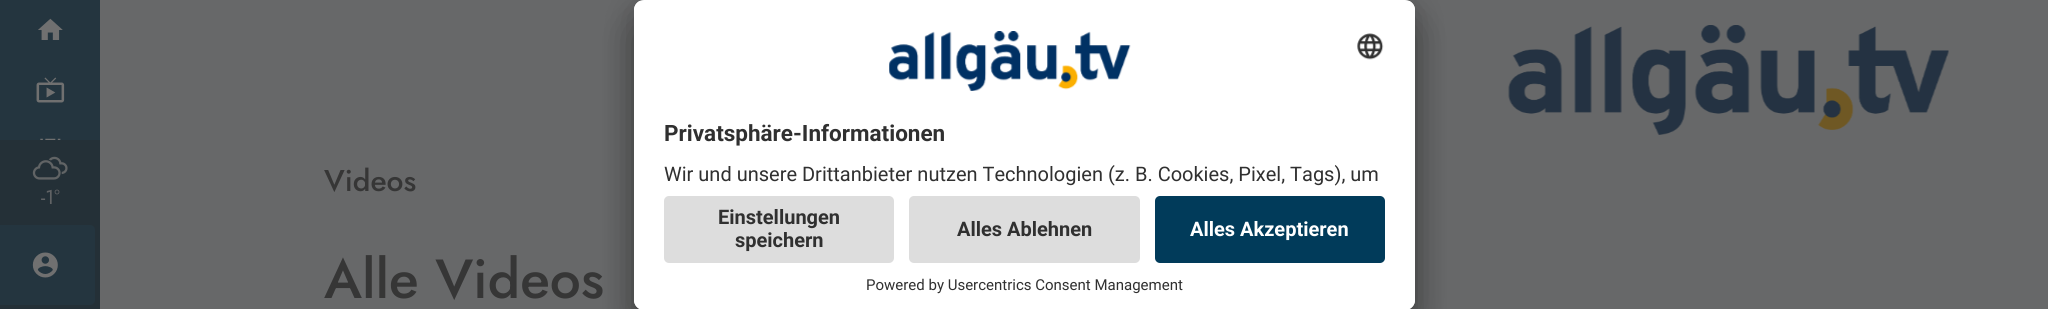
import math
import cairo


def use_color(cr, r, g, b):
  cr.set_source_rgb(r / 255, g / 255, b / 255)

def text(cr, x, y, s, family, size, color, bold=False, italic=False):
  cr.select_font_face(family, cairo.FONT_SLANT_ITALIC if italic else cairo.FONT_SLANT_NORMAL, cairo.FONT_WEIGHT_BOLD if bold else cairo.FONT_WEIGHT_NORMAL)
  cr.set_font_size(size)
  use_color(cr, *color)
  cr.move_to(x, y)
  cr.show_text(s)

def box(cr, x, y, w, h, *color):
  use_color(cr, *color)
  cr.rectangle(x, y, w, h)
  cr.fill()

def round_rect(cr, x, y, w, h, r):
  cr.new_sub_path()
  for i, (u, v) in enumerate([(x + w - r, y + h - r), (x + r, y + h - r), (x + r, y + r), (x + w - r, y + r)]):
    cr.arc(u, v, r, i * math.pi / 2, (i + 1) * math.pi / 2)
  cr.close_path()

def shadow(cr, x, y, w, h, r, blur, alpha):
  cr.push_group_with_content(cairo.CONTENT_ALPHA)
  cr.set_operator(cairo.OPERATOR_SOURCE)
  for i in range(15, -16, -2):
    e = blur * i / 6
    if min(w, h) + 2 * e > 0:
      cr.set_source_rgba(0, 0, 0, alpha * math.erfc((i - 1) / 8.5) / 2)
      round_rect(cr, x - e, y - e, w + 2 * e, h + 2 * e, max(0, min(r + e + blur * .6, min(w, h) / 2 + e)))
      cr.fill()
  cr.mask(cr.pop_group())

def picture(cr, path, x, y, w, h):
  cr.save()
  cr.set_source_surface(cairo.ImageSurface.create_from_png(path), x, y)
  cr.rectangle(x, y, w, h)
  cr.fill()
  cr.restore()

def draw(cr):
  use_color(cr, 103, 104, 105)
  cr.paint()
  picture(cr, "img_01.png", 1508, 25, 441, 110)
  box(cr, 0, 0, 100, 140, 36, 53, 63)
  picture(cr, "img_02.png", 38, 18, 25, 22)
  picture(cr, "img_03.png", 36, 77, 29, 26)
  picture(cr, "img_04.png", 40, 138, 21, 2)
  box(cr, 0, 140, 100, 169, 36, 48, 55)
  picture(cr, "img_05.png", 32, 156, 36, 24)
  use_color(cr, 36, 53, 63)
  round_rect(cr, -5, 225, 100, 80, 5)
  cr.fill()
  picture(cr, "img_06.png", 32, 252, 26, 26)
  use_color(cr, 0, 0, 0)
  shadow(cr, 634, 25, 781, 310, 10, 17.5, 0.3)
  shadow(cr, 634, 6, 781, 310, 10, 16, 0.22)
  use_color(cr, 255, 255, 255)
  round_rect(cr, 634, 0, 781, 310, 10)
  cr.fill()
  cr.save()
  round_rect(cr, 634, 0, 781, 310, 10)
  cr.clip()
  cr.new_path()
  cr.move_to(644, 0)
  cr.line_to(1405, 0)
  cr.curve_to(1410.5, 0, 1415, 4.5, 1415, 10)
  cr.line_to(1415, 186)
  cr.line_to(634, 186)
  cr.line_to(634, 10)
  cr.curve_to(634, 4.5, 638.5, 0, 644, 0)
  cr.close_path()
  cr.clip()
  box(cr, 634, 1, 781, 185, 255, 255, 255)
  cr.restore()
  picture(cr, "img_07.png", 889, 31, 242, 60)
  picture(cr, "img_08.png", 1357, 33, 27, 27)
  cr.new_path()
  cr.move_to(634, 186)
  cr.line_to(1415, 186)
  cr.line_to(1415, 300)
  cr.curve_to(1415, 305.5, 1410.5, 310, 1405, 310)
  cr.line_to(644, 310)
  cr.curve_to(638.5, 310, 634, 305.5, 634, 300)
  cr.close_path()
  cr.fill()
  use_color(cr, 221, 221, 221)
  round_rect(cr, 664, 196, 230, 67, 5)
  cr.fill()
  round_rect(cr, 909, 196, 231, 67, 5)
  cr.fill()
  use_color(cr, 1, 59, 90)
  round_rect(cr, 1155, 196, 230, 67, 5)
  cr.fill()
  text(cr, 41, 204, "-1°", "Jost", 20, (97, 99, 101))
  text(cr, 324, 191, "Videos", "Jost Medium", 30, (54, 54, 54))
  text(cr, 324, 298, "Alle Videos", "Jost Medium", 55, (54, 54, 54))
  text(cr, 664, 141, "Privatsphäre-Informationen", "Roboto", 22.5, (48, 48, 48), bold=True)
  text(cr, 664, 181, "Wir und unsere Drittanbieter nutzen Technologien (z. B. Cookies, Pixel, Tags), um", "Roboto", 20, (48, 48, 48))
  text(cr, 718, 224, "Einstellungen", "Roboto", 20, (48, 48, 48), bold=True)
  text(cr, 735, 247, "speichern", "Roboto", 20, (48, 48, 48), bold=True)
  text(cr, 957, 236, "Alles Ablehnen", "Roboto", 20, (48, 48, 48), bold=True)
  text(cr, 1190, 236, "Alles Akzeptieren", "Roboto", 20, (255, 255, 255), bold=True)
  text(cr, 866, 290, "Powered by Usercentrics Consent Management", "Roboto", 15, (48, 48, 48))


surface = cairo.ImageSurface(cairo.FORMAT_RGB24, 2048, 309)
cr = cairo.Context(surface)
options = cairo.FontOptions()
options.set_hint_metrics(cairo.HINT_METRICS_OFF)
options.set_hint_style(cairo.HINT_STYLE_NONE)
cr.set_font_options(options)
cr.set_miter_limit(4)
draw(cr)
surface.write_to_png("out.png")
